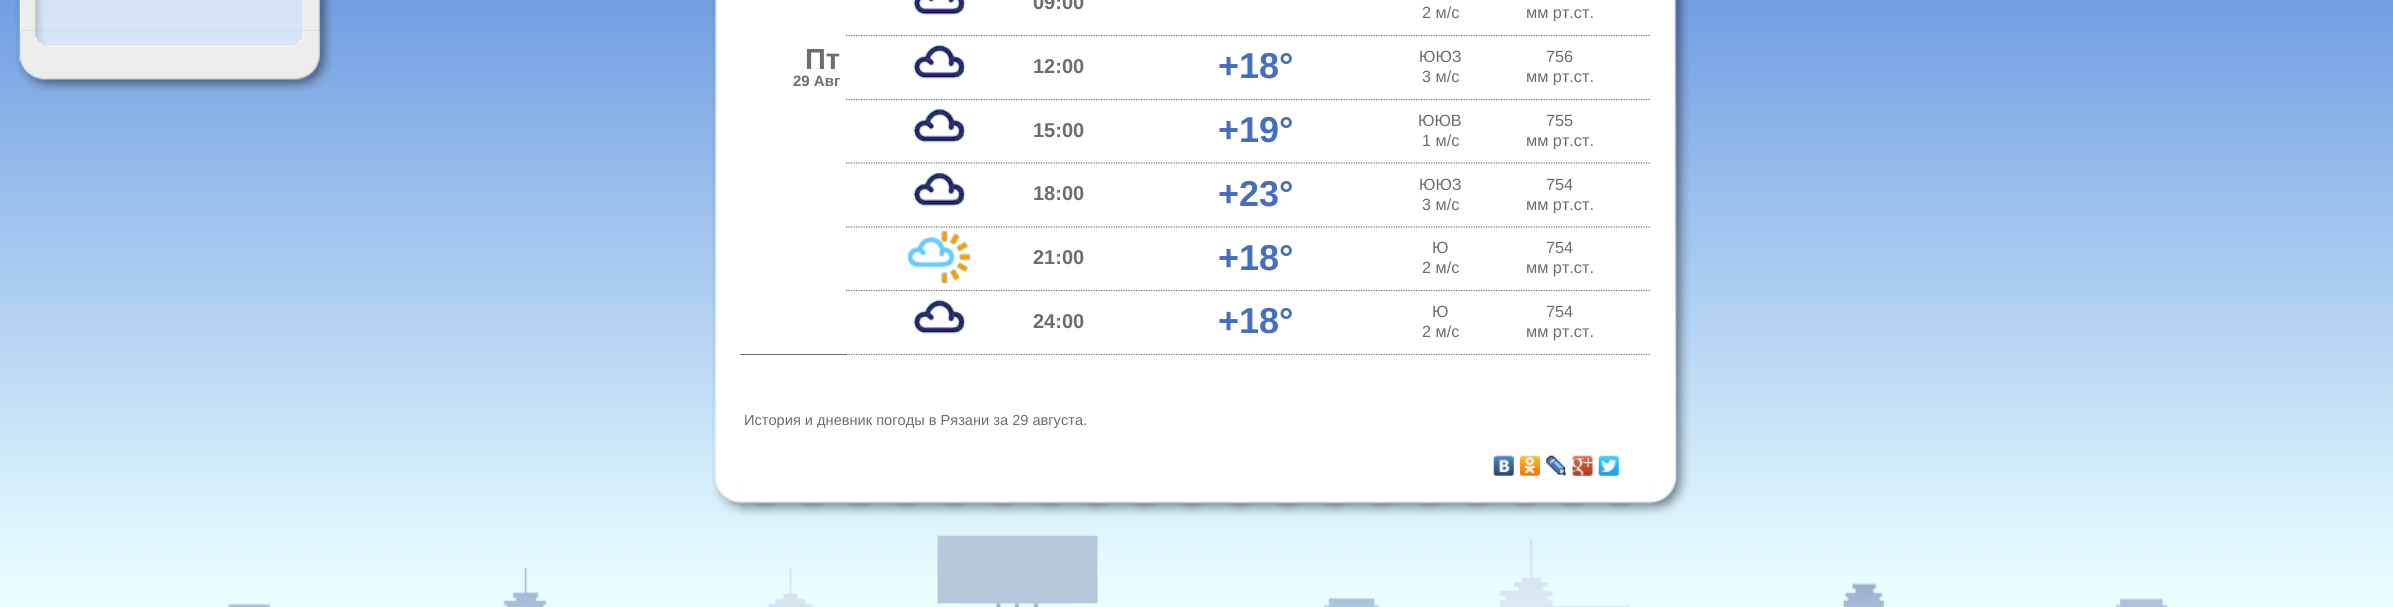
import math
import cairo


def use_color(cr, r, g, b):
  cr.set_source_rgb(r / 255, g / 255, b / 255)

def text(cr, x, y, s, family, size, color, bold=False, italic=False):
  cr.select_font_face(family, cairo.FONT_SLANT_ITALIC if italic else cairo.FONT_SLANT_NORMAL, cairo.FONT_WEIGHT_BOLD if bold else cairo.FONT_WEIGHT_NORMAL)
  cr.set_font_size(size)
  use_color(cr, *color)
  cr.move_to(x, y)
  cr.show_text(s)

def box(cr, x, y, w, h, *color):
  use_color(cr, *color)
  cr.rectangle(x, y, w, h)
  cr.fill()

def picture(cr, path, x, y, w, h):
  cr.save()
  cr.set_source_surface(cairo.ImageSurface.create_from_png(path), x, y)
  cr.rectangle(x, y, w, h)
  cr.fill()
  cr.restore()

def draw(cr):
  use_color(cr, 255, 255, 255)
  cr.paint()
  picture(cr, "img_01.png", 0, 0, 2393, 607)
  picture(cr, "img_02.png", 227, 535, 1941, 72)
  picture(cr, "img_03.png", 15, 0, 318, 31)
  picture(cr, "img_04.png", 15, 30, 318, 62)
  picture(cr, "img_05.png", 712, 0, 28, 477)
  box(cr, 740, 0, 913, 481, 255, 255, 255)
  picture(cr, "img_06.png", 913, 0, 53, 15)
  cr.new_path()
  cr.move_to(846, 35.5)
  cr.line_to(1651, 35.5)
  use_color(cr, 109, 109, 109)
  cr.set_line_width(1.2)
  cr.set_dash([1.25, 1.25])
  cr.stroke()
  box(cr, 740, 354, 106, 1, 109, 109, 109)
  picture(cr, "img_07.png", 913, 44, 53, 35)
  cr.new_path()
  cr.move_to(846, 99.5)
  cr.line_to(1651, 99.5)
  cr.stroke()
  picture(cr, "img_08.png", 913, 108, 53, 35)
  cr.new_path()
  cr.move_to(846, 163)
  cr.line_to(1651, 163)
  cr.stroke()
  picture(cr, "img_09.png", 913, 172, 53, 34)
  cr.new_path()
  cr.move_to(846, 227)
  cr.line_to(1651, 227)
  cr.stroke()
  picture(cr, "img_10.png", 907, 230, 65, 54)
  cr.new_path()
  cr.move_to(846, 290.5)
  cr.line_to(1651, 290.5)
  cr.stroke()
  picture(cr, "img_07.png", 913, 299, 53, 35)
  cr.save()
  cr.rectangle(740, 0, 913, 355)
  cr.clip()
  cr.new_path()
  cr.move_to(846, 354.5)
  cr.line_to(1651, 354.5)
  cr.stroke()
  cr.restore()
  picture(cr, "img_11.png", 1493, 455, 126, 21)
  picture(cr, "img_12.png", 1653, 0, 36, 477)
  picture(cr, "img_13.png", 712, 477, 30, 37)
  picture(cr, "img_14.png", 741, 481, 908, 35)
  picture(cr, "img_15.png", 1648, 477, 41, 38)
  text(cr, 1033, 9, "09:00", "Liberation Sans", 20, (109, 109, 109), bold=True)
  text(cr, 1422, 18, "2 м/с", "Liberation Sans", 16.25, (109, 109, 109))
  text(cr, 1526, 18, "мм рт.ст.", "Liberation Sans", 16.25, (109, 109, 109))
  text(cr, 805, 69, "Пт", "Liberation Sans", 29, (109, 109, 109), bold=True)
  text(cr, 793, 86, "29 Авг", "Liberation Sans", 15, (109, 109, 109), bold=True)
  text(cr, 1033, 73, "12:00", "Liberation Sans", 20, (109, 109, 109), bold=True)
  text(cr, 1218, 78, "+18°", "Liberation Sans", 36, (70, 110, 185), bold=True)
  text(cr, 1419, 62, "ЮЮЗ", "Liberation Sans", 16.25, (109, 109, 109))
  text(cr, 1422, 82, "3 м/с", "Liberation Sans", 16.25, (109, 109, 109))
  text(cr, 1546, 62, "756", "Liberation Sans", 16.25, (109, 109, 109))
  text(cr, 1526, 82, "мм рт.ст.", "Liberation Sans", 16.25, (109, 109, 109))
  text(cr, 1033, 137, "15:00", "Liberation Sans", 20, (109, 109, 109), bold=True)
  text(cr, 1218, 142, "+19°", "Liberation Sans", 36, (70, 110, 185), bold=True)
  text(cr, 1418, 126, "ЮЮВ", "Liberation Sans", 16.25, (109, 109, 109))
  text(cr, 1422, 146, "1 м/с", "Liberation Sans", 16.25, (109, 109, 109))
  text(cr, 1546, 126, "755", "Liberation Sans", 16.25, (109, 109, 109))
  text(cr, 1526, 146, "мм рт.ст.", "Liberation Sans", 16.25, (109, 109, 109))
  text(cr, 1033, 200, "18:00", "Liberation Sans", 20, (109, 109, 109), bold=True)
  text(cr, 1218, 206, "+23°", "Liberation Sans", 36, (70, 110, 185), bold=True)
  text(cr, 1419, 190, "ЮЮЗ", "Liberation Sans", 16.25, (109, 109, 109))
  text(cr, 1422, 210, "3 м/с", "Liberation Sans", 16.25, (109, 109, 109))
  text(cr, 1546, 190, "754", "Liberation Sans", 16.25, (109, 109, 109))
  text(cr, 1526, 210, "мм рт.ст.", "Liberation Sans", 16.25, (109, 109, 109))
  text(cr, 1033, 264, "21:00", "Liberation Sans", 20, (109, 109, 109), bold=True)
  text(cr, 1218, 270, "+18°", "Liberation Sans", 36, (70, 110, 185), bold=True)
  text(cr, 1432, 253, "Ю", "Liberation Sans", 16.25, (109, 109, 109))
  text(cr, 1422, 273, "2 м/с", "Liberation Sans", 16.25, (109, 109, 109))
  text(cr, 1546, 253, "754", "Liberation Sans", 16.25, (109, 109, 109))
  text(cr, 1526, 273, "мм рт.ст.", "Liberation Sans", 16.25, (109, 109, 109))
  text(cr, 1033, 328, "24:00", "Liberation Sans", 20, (109, 109, 109), bold=True)
  text(cr, 1218, 333, "+18°", "Liberation Sans", 36, (70, 110, 185), bold=True)
  text(cr, 1432, 317, "Ю", "Liberation Sans", 16.25, (109, 109, 109))
  text(cr, 1422, 337, "2 м/с", "Liberation Sans", 16.25, (109, 109, 109))
  text(cr, 1546, 317, "754", "Liberation Sans", 16.25, (109, 109, 109))
  text(cr, 1526, 337, "мм рт.ст.", "Liberation Sans", 16.25, (109, 109, 109))
  text(cr, 744, 425, "История и дневник погоды в Рязани за 29 августа.", "Liberation Sans", 14.6, (109, 109, 109))


surface = cairo.ImageSurface(cairo.FORMAT_RGB24, 2393, 607)
cr = cairo.Context(surface)
options = cairo.FontOptions()
options.set_hint_metrics(cairo.HINT_METRICS_OFF)
options.set_hint_style(cairo.HINT_STYLE_NONE)
cr.set_font_options(options)
cr.set_miter_limit(4)
draw(cr)
surface.write_to_png("out.png")
